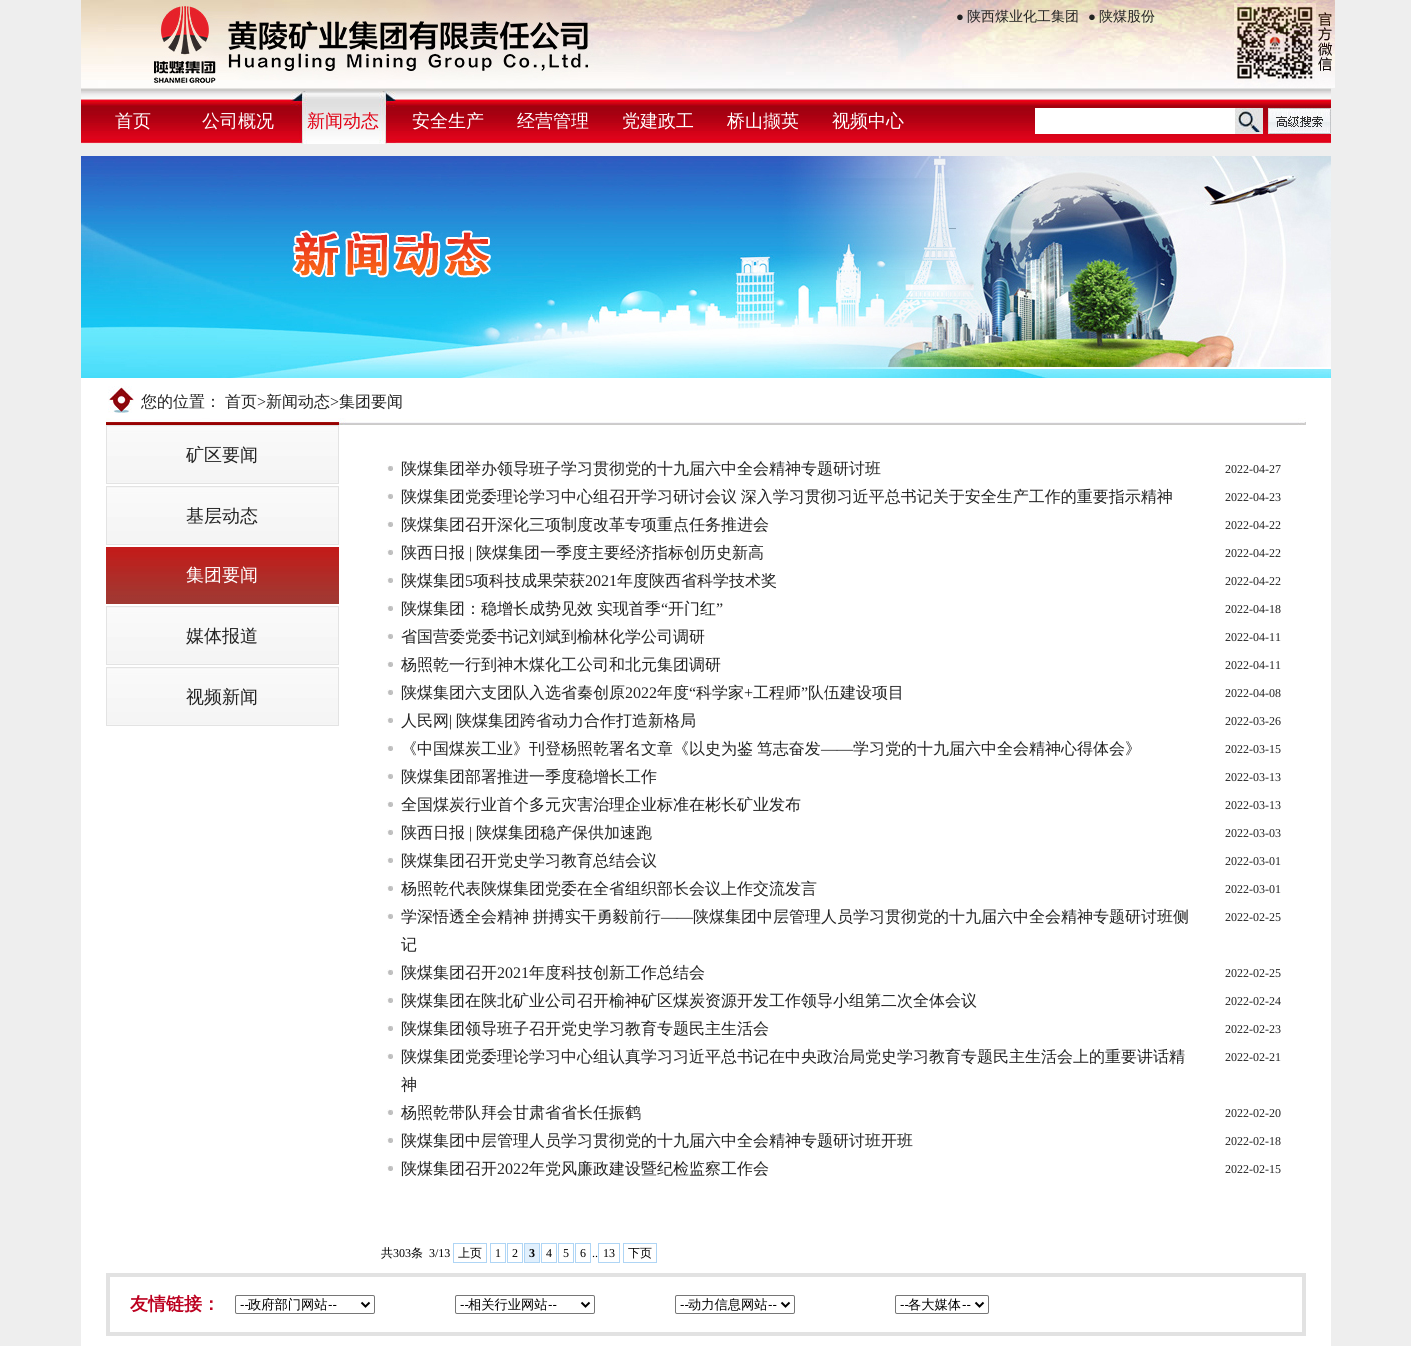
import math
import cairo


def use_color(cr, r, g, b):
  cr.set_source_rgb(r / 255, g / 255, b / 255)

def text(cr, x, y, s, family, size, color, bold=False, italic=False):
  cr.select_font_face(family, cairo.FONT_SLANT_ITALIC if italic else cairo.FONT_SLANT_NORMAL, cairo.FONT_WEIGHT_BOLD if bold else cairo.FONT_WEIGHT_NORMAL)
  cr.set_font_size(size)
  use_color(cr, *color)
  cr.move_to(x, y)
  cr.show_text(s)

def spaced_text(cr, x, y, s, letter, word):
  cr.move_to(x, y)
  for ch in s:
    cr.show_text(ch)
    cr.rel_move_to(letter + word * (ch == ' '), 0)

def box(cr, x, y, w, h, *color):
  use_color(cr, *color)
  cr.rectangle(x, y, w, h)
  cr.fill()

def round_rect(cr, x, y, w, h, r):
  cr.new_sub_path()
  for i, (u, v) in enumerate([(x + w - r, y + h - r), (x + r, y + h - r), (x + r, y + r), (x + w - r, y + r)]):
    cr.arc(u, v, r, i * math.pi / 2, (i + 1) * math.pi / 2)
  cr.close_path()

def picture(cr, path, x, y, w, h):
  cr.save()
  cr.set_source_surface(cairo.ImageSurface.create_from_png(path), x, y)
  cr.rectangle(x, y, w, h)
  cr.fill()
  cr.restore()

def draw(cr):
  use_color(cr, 238, 238, 238)
  cr.paint()
  picture(cr, "img_01.png", 81, 0, 1250, 91)
  picture(cr, "img_02.png", 1234, 0, 101, 88)
  picture(cr, "img_03.png", 81, 91, 1250, 53)
  picture(cr, "img_04.png", 291, 91, 105, 53)
  box(cr, 1035, 108, 200, 26, 255, 255, 255)
  picture(cr, "img_05.png", 1235, 108, 28, 26)
  picture(cr, "img_06.png", 1268, 108, 63, 26)
  box(cr, 81, 378, 1250, 968, 255, 255, 255)
  picture(cr, "img_07.png", 81, 156, 1250, 222)
  picture(cr, "img_08.png", 106, 418, 1200, 7)
  picture(cr, "img_09.png", 108, 386, 26, 27)
  picture(cr, "img_10.png", 107, 426, 231, 57)
  cr.rectangle(106.5, 425.5, 232, 58)
  use_color(cr, 227, 227, 227)
  cr.set_line_width(1)
  cr.stroke()
  picture(cr, "img_10.png", 107, 487, 231, 57)
  cr.rectangle(106.5, 486.5, 232, 58)
  cr.stroke()
  picture(cr, "img_11.png", 106, 547, 233, 57)
  picture(cr, "img_10.png", 107, 607, 231, 57)
  cr.rectangle(106.5, 606.5, 232, 58)
  cr.stroke()
  picture(cr, "img_10.png", 107, 668, 231, 57)
  cr.rectangle(106.5, 667.5, 232, 58)
  cr.stroke()
  picture(cr, "img_12.png", 387, 465, 6, 6)
  picture(cr, "img_12.png", 387, 493, 6, 6)
  picture(cr, "img_12.png", 387, 521, 6, 6)
  picture(cr, "img_12.png", 387, 549, 6, 6)
  picture(cr, "img_12.png", 387, 577, 6, 6)
  picture(cr, "img_12.png", 387, 605, 6, 6)
  picture(cr, "img_12.png", 387, 633, 6, 6)
  picture(cr, "img_12.png", 387, 661, 6, 6)
  picture(cr, "img_12.png", 387, 689, 6, 6)
  picture(cr, "img_12.png", 387, 717, 6, 6)
  picture(cr, "img_12.png", 387, 745, 6, 6)
  picture(cr, "img_12.png", 387, 773, 6, 6)
  picture(cr, "img_12.png", 387, 801, 6, 6)
  picture(cr, "img_12.png", 387, 829, 6, 6)
  picture(cr, "img_12.png", 387, 857, 6, 6)
  picture(cr, "img_12.png", 387, 885, 6, 6)
  picture(cr, "img_12.png", 387, 913, 6, 6)
  picture(cr, "img_12.png", 387, 969, 6, 6)
  picture(cr, "img_12.png", 387, 997, 6, 6)
  picture(cr, "img_12.png", 387, 1025, 6, 6)
  picture(cr, "img_12.png", 387, 1053, 6, 6)
  picture(cr, "img_12.png", 387, 1109, 6, 6)
  picture(cr, "img_12.png", 387, 1137, 6, 6)
  picture(cr, "img_12.png", 387, 1165, 6, 6)
  cr.rectangle(453.5, 1243.5, 33, 19)
  use_color(cr, 175, 213, 245)
  cr.stroke()
  cr.rectangle(490.5, 1243.5, 15, 19)
  cr.stroke()
  cr.rectangle(507.5, 1243.5, 15, 19)
  cr.stroke()
  use_color(cr, 225, 240, 253)
  cr.rectangle(524.5, 1243.5, 15, 19)
  cr.fill_preserve()
  use_color(cr, 175, 213, 245)
  cr.stroke()
  cr.rectangle(541.5, 1243.5, 15, 19)
  cr.stroke()
  cr.rectangle(558.5, 1243.5, 15, 19)
  cr.stroke()
  cr.rectangle(575.5, 1243.5, 15, 19)
  cr.stroke()
  cr.rectangle(598.5, 1243.5, 21, 19)
  cr.stroke()
  cr.rectangle(623.5, 1243.5, 33, 19)
  cr.stroke()
  cr.rectangle(108, 1275, 1196, 59)
  use_color(cr, 226, 226, 226)
  cr.set_line_width(4)
  cr.stroke()
  round_rect(cr, 235.5, 1295.5, 139, 18, 1.5)
  use_color(cr, 118, 118, 118)
  cr.set_line_width(1)
  cr.stroke()
  cr.new_path()
  cr.move_to(361.5, 1302.5)
  cr.line_to(365.5, 1306.5)
  cr.line_to(369.5, 1302.5)
  use_color(cr, 0, 0, 0)
  cr.set_line_width(2)
  cr.stroke()
  round_rect(cr, 455.5, 1295.5, 139, 18, 1.5)
  use_color(cr, 118, 118, 118)
  cr.set_line_width(1)
  cr.stroke()
  cr.new_path()
  cr.move_to(581.5, 1302.5)
  cr.line_to(585.5, 1306.5)
  cr.line_to(589.5, 1302.5)
  use_color(cr, 0, 0, 0)
  cr.set_line_width(2)
  cr.stroke()
  round_rect(cr, 675.5, 1295.5, 119, 18, 1.5)
  use_color(cr, 118, 118, 118)
  cr.set_line_width(1)
  cr.stroke()
  cr.new_path()
  cr.move_to(781.5, 1302.5)
  cr.line_to(785.5, 1306.5)
  cr.line_to(789.5, 1302.5)
  use_color(cr, 0, 0, 0)
  cr.set_line_width(2)
  cr.stroke()
  round_rect(cr, 895.5, 1295.5, 93, 18, 1.5)
  use_color(cr, 118, 118, 118)
  cr.set_line_width(1)
  cr.stroke()
  cr.new_path()
  cr.move_to(975.5, 1302.5)
  cr.line_to(979.5, 1306.5)
  cr.line_to(983.5, 1302.5)
  use_color(cr, 0, 0, 0)
  cr.set_line_width(2)
  cr.stroke()
  text(cr, 956, 21, "●", "Liberation Serif", 13, (34, 34, 34))
  text(cr, 967, 21, "陕西煤业化工集团", "WenQuanYi Zen Hei Medium", 14, (34, 34, 34))
  text(cr, 1088, 21, "●", "Liberation Serif", 13, (34, 34, 34))
  text(cr, 1099, 21, "陕煤股份", "WenQuanYi Zen Hei Medium", 14, (34, 34, 34))
  text(cr, 115, 127, "首页", "WenQuanYi Zen Hei Medium", 18, (255, 255, 255))
  text(cr, 202, 127, "公司概况", "WenQuanYi Zen Hei Medium", 18, (255, 255, 255))
  text(cr, 307, 127, "新闻动态", "WenQuanYi Zen Hei Medium", 18, (225, 0, 20))
  text(cr, 412, 127, "安全生产", "WenQuanYi Zen Hei Medium", 18, (255, 255, 255))
  text(cr, 517, 127, "经营管理", "WenQuanYi Zen Hei Medium", 18, (255, 255, 255))
  text(cr, 622, 127, "党建政工", "WenQuanYi Zen Hei Medium", 18, (255, 255, 255))
  text(cr, 727, 127, "桥山撷英", "WenQuanYi Zen Hei Medium", 18, (255, 255, 255))
  text(cr, 832, 127, "视频中心", "WenQuanYi Zen Hei Medium", 18, (255, 255, 255))
  text(cr, 141, 407, "您的位置：", "WenQuanYi Zen Hei Medium", 16, (34, 34, 34))
  text(cr, 225, 407, "首页", "WenQuanYi Zen Hei Medium", 16, (34, 34, 34))
  text(cr, 257, 407, ">", "Liberation Serif", 16, (34, 34, 34))
  text(cr, 266, 407, "新闻动态", "WenQuanYi Zen Hei Medium", 16, (34, 34, 34))
  text(cr, 330, 407, ">", "Liberation Serif", 16, (34, 34, 34))
  text(cr, 339, 407, "集团要闻", "WenQuanYi Zen Hei Medium", 16, (34, 34, 34))
  text(cr, 186, 461, "矿区要闻", "WenQuanYi Zen Hei Medium", 18, (34, 34, 34))
  text(cr, 186, 522, "基层动态", "WenQuanYi Zen Hei Medium", 18, (34, 34, 34))
  text(cr, 186, 581, "集团要闻", "WenQuanYi Zen Hei Medium", 18, (255, 255, 255))
  text(cr, 186, 642, "媒体报道", "WenQuanYi Zen Hei Medium", 18, (34, 34, 34))
  text(cr, 186, 703, "视频新闻", "WenQuanYi Zen Hei Medium", 18, (34, 34, 34))
  text(cr, 401, 474, "陕煤集团举办领导班子学习贯彻党的十九届六中全会精神专题研讨班", "WenQuanYi Zen Hei Medium", 16, (34, 34, 34))
  text(cr, 1225, 473, "2022-04-27", "Liberation Serif", 12, (34, 34, 34))
  cr.select_font_face("WenQuanYi Zen Hei Medium")
  cr.set_font_size(16)
  spaced_text(cr, 401, 502, "陕煤集团党委理论学习中心组召开学习研讨会议 深入学习贯彻习近平总书记关于安全生产工作的重要指示精神", 0, -1)
  text(cr, 1225, 501, "2022-04-23", "Liberation Serif", 12, (34, 34, 34))
  text(cr, 401, 530, "陕煤集团召开深化三项制度改革专项重点任务推进会", "WenQuanYi Zen Hei Medium", 16, (34, 34, 34))
  text(cr, 1225, 529, "2022-04-22", "Liberation Serif", 12, (34, 34, 34))
  text(cr, 401, 558, "陕西日报", "WenQuanYi Zen Hei Medium", 16, (34, 34, 34))
  text(cr, 469, 558, "|", "Liberation Serif", 16, (34, 34, 34))
  text(cr, 476, 558, "陕煤集团一季度主要经济指标创历史新高", "WenQuanYi Zen Hei Medium", 16, (34, 34, 34))
  text(cr, 1225, 557, "2022-04-22", "Liberation Serif", 12, (34, 34, 34))
  text(cr, 401, 586, "陕煤集团", "WenQuanYi Zen Hei Medium", 16, (34, 34, 34))
  text(cr, 465, 586, "5", "Liberation Serif", 16, (34, 34, 34))
  text(cr, 473, 586, "项科技成果荣获", "WenQuanYi Zen Hei Medium", 16, (34, 34, 34))
  text(cr, 585, 586, "2021", "Liberation Serif", 16, (34, 34, 34))
  text(cr, 617, 586, "年度陕西省科学技术奖", "WenQuanYi Zen Hei Medium", 16, (34, 34, 34))
  text(cr, 1225, 585, "2022-04-22", "Liberation Serif", 12, (34, 34, 34))
  cr.select_font_face("WenQuanYi Zen Hei Medium")
  cr.set_font_size(16)
  spaced_text(cr, 401, 614, "陕煤集团：稳增长成势见效 实现首季", 0, -1)
  text(cr, 661, 614, "“", "Liberation Serif", 16, (34, 34, 34))
  text(cr, 668, 614, "开门红", "WenQuanYi Zen Hei Medium", 16, (34, 34, 34))
  text(cr, 716, 614, "”", "Liberation Serif", 16, (34, 34, 34))
  text(cr, 1225, 613, "2022-04-18", "Liberation Serif", 12, (34, 34, 34))
  text(cr, 401, 642, "省国营委党委书记刘斌到榆林化学公司调研", "WenQuanYi Zen Hei Medium", 16, (34, 34, 34))
  text(cr, 1225, 641, "2022-04-11", "Liberation Serif", 12, (34, 34, 34))
  text(cr, 401, 670, "杨照乾一行到神木煤化工公司和北元集团调研", "WenQuanYi Zen Hei Medium", 16, (34, 34, 34))
  text(cr, 1225, 669, "2022-04-11", "Liberation Serif", 12, (34, 34, 34))
  text(cr, 401, 698, "陕煤集团六支团队入选省秦创原", "WenQuanYi Zen Hei Medium", 16, (34, 34, 34))
  text(cr, 625, 698, "2022", "Liberation Serif", 16, (34, 34, 34))
  text(cr, 657, 698, "年度", "WenQuanYi Zen Hei Medium", 16, (34, 34, 34))
  text(cr, 689, 698, "“", "Liberation Serif", 16, (34, 34, 34))
  text(cr, 696, 698, "科学家", "WenQuanYi Zen Hei Medium", 16, (34, 34, 34))
  text(cr, 744, 698, "+", "Liberation Serif", 16, (34, 34, 34))
  text(cr, 753, 698, "工程师", "WenQuanYi Zen Hei Medium", 16, (34, 34, 34))
  text(cr, 801, 698, "”", "Liberation Serif", 16, (34, 34, 34))
  text(cr, 808, 698, "队伍建设项目", "WenQuanYi Zen Hei Medium", 16, (34, 34, 34))
  text(cr, 1225, 697, "2022-04-08", "Liberation Serif", 12, (34, 34, 34))
  text(cr, 401, 726, "人民网", "WenQuanYi Zen Hei Medium", 16, (34, 34, 34))
  text(cr, 449, 726, "|", "Liberation Serif", 16, (34, 34, 34))
  text(cr, 456, 726, "陕煤集团跨省动力合作打造新格局", "WenQuanYi Zen Hei Medium", 16, (34, 34, 34))
  text(cr, 1225, 725, "2022-03-26", "Liberation Serif", 12, (34, 34, 34))
  cr.select_font_face("WenQuanYi Zen Hei Medium")
  cr.set_font_size(16)
  spaced_text(cr, 401, 754, "《中国煤炭工业》刊登杨照乾署名文章《以史为鉴 笃志奋发", 0, -1)
  text(cr, 821, 754, "——", "Liberation Serif", 16, (34, 34, 34))
  text(cr, 853, 754, "学习党的十九届六中全会精神心得体会》", "WenQuanYi Zen Hei Medium", 16, (34, 34, 34))
  text(cr, 1225, 753, "2022-03-15", "Liberation Serif", 12, (34, 34, 34))
  text(cr, 401, 782, "陕煤集团部署推进一季度稳增长工作", "WenQuanYi Zen Hei Medium", 16, (34, 34, 34))
  text(cr, 1225, 781, "2022-03-13", "Liberation Serif", 12, (34, 34, 34))
  text(cr, 401, 810, "全国煤炭行业首个多元灾害治理企业标准在彬长矿业发布", "WenQuanYi Zen Hei Medium", 16, (34, 34, 34))
  text(cr, 1225, 809, "2022-03-13", "Liberation Serif", 12, (34, 34, 34))
  text(cr, 401, 838, "陕西日报", "WenQuanYi Zen Hei Medium", 16, (34, 34, 34))
  text(cr, 469, 838, "|", "Liberation Serif", 16, (34, 34, 34))
  text(cr, 476, 838, "陕煤集团稳产保供加速跑", "WenQuanYi Zen Hei Medium", 16, (34, 34, 34))
  text(cr, 1225, 837, "2022-03-03", "Liberation Serif", 12, (34, 34, 34))
  text(cr, 401, 866, "陕煤集团召开党史学习教育总结会议", "WenQuanYi Zen Hei Medium", 16, (34, 34, 34))
  text(cr, 1225, 865, "2022-03-01", "Liberation Serif", 12, (34, 34, 34))
  text(cr, 401, 894, "杨照乾代表陕煤集团党委在全省组织部长会议上作交流发言", "WenQuanYi Zen Hei Medium", 16, (34, 34, 34))
  text(cr, 1225, 893, "2022-03-01", "Liberation Serif", 12, (34, 34, 34))
  cr.select_font_face("WenQuanYi Zen Hei Medium")
  cr.set_font_size(16)
  spaced_text(cr, 401, 922, "学深悟透全会精神 拼搏实干勇毅前行", 0, -1)
  text(cr, 661, 922, "——", "Liberation Serif", 16, (34, 34, 34))
  text(cr, 693, 922, "陕煤集团中层管理人员学习贯彻党的十九届六中全会精神专题研讨班侧", "WenQuanYi Zen Hei Medium", 16, (34, 34, 34))
  text(cr, 401, 950, "记", "WenQuanYi Zen Hei Medium", 16, (34, 34, 34))
  text(cr, 1225, 921, "2022-02-25", "Liberation Serif", 12, (34, 34, 34))
  text(cr, 401, 978, "陕煤集团召开", "WenQuanYi Zen Hei Medium", 16, (34, 34, 34))
  text(cr, 497, 978, "2021", "Liberation Serif", 16, (34, 34, 34))
  text(cr, 529, 978, "年度科技创新工作总结会", "WenQuanYi Zen Hei Medium", 16, (34, 34, 34))
  text(cr, 1225, 977, "2022-02-25", "Liberation Serif", 12, (34, 34, 34))
  text(cr, 401, 1006, "陕煤集团在陕北矿业公司召开榆神矿区煤炭资源开发工作领导小组第二次全体会议", "WenQuanYi Zen Hei Medium", 16, (34, 34, 34))
  text(cr, 1225, 1005, "2022-02-24", "Liberation Serif", 12, (34, 34, 34))
  text(cr, 401, 1034, "陕煤集团领导班子召开党史学习教育专题民主生活会", "WenQuanYi Zen Hei Medium", 16, (34, 34, 34))
  text(cr, 1225, 1033, "2022-02-23", "Liberation Serif", 12, (34, 34, 34))
  text(cr, 401, 1062, "陕煤集团党委理论学习中心组认真学习习近平总书记在中央政治局党史学习教育专题民主生活会上的重要讲话精", "WenQuanYi Zen Hei Medium", 16, (34, 34, 34))
  text(cr, 401, 1090, "神", "WenQuanYi Zen Hei Medium", 16, (34, 34, 34))
  text(cr, 1225, 1061, "2022-02-21", "Liberation Serif", 12, (34, 34, 34))
  text(cr, 401, 1118, "杨照乾带队拜会甘肃省省长任振鹤", "WenQuanYi Zen Hei Medium", 16, (34, 34, 34))
  text(cr, 1225, 1117, "2022-02-20", "Liberation Serif", 12, (34, 34, 34))
  text(cr, 401, 1146, "陕煤集团中层管理人员学习贯彻党的十九届六中全会精神专题研讨班开班", "WenQuanYi Zen Hei Medium", 16, (34, 34, 34))
  text(cr, 1225, 1145, "2022-02-18", "Liberation Serif", 12, (34, 34, 34))
  text(cr, 401, 1174, "陕煤集团召开", "WenQuanYi Zen Hei Medium", 16, (34, 34, 34))
  text(cr, 497, 1174, "2022", "Liberation Serif", 16, (34, 34, 34))
  text(cr, 529, 1174, "年党风廉政建设暨纪检监察工作会", "WenQuanYi Zen Hei Medium", 16, (34, 34, 34))
  text(cr, 1225, 1173, "2022-02-15", "Liberation Serif", 12, (34, 34, 34))
  text(cr, 381, 1257, "共", "WenQuanYi Zen Hei Medium", 12, (0, 0, 0))
  text(cr, 393, 1257, "303", "Liberation Serif", 12, (0, 0, 0))
  text(cr, 411, 1257, "条", "WenQuanYi Zen Hei Medium", 12, (0, 0, 0))
  text(cr, 429, 1257, "3/13", "Liberation Serif", 12, (0, 0, 0))
  text(cr, 458, 1257, "上页", "WenQuanYi Zen Hei Medium", 12, (0, 0, 0))
  text(cr, 495, 1257, "1", "Liberation Serif", 12, (0, 0, 0))
  text(cr, 512, 1257, "2", "Liberation Serif", 12, (0, 0, 0))
  text(cr, 529, 1257, "3", "Liberation Serif", 12, (0, 0, 0), bold=True)
  text(cr, 546, 1257, "4", "Liberation Serif", 12, (0, 0, 0))
  text(cr, 563, 1257, "5", "Liberation Serif", 12, (0, 0, 0))
  text(cr, 580, 1257, "6", "Liberation Serif", 12, (0, 0, 0))
  text(cr, 592, 1257, "..", "Liberation Serif", 12, (0, 0, 0))
  text(cr, 603, 1257, "13", "Liberation Serif", 12, (0, 0, 0))
  text(cr, 628, 1257, "下页", "WenQuanYi Zen Hei Medium", 12, (0, 0, 0))
  text(cr, 130, 1310, "友情链接：", "WenQuanYi Zen Hei", 18, (188, 1, 32), bold=True)
  text(cr, 240, 1309, "--", "Liberation Sans", 13.25, (0, 0, 0))
  text(cr, 248, 1309, "政府部门网站", "WenQuanYi Zen Hei Medium", 13.25, (0, 0, 0))
  text(cr, 328, 1309, "--", "Liberation Sans", 13.25, (0, 0, 0))
  text(cr, 460, 1309, "--", "Liberation Sans", 13.25, (0, 0, 0))
  text(cr, 468, 1309, "相关行业网站", "WenQuanYi Zen Hei Medium", 13.25, (0, 0, 0))
  text(cr, 548, 1309, "--", "Liberation Sans", 13.25, (0, 0, 0))
  text(cr, 680, 1309, "--", "Liberation Sans", 13.25, (0, 0, 0))
  text(cr, 688, 1309, "动力信息网站", "WenQuanYi Zen Hei Medium", 13.25, (0, 0, 0))
  text(cr, 768, 1309, "--", "Liberation Sans", 13.25, (0, 0, 0))
  text(cr, 900, 1309, "--", "Liberation Sans", 13.25, (0, 0, 0))
  text(cr, 908, 1309, "各大媒体", "WenQuanYi Zen Hei Medium", 13.25, (0, 0, 0))
  text(cr, 962, 1309, "--", "Liberation Sans", 13.25, (0, 0, 0))


surface = cairo.ImageSurface(cairo.FORMAT_RGB24, 1411, 1346)
cr = cairo.Context(surface)
options = cairo.FontOptions()
options.set_hint_metrics(cairo.HINT_METRICS_OFF)
options.set_hint_style(cairo.HINT_STYLE_NONE)
cr.set_font_options(options)
cr.set_miter_limit(4)
draw(cr)
surface.write_to_png("out.png")
